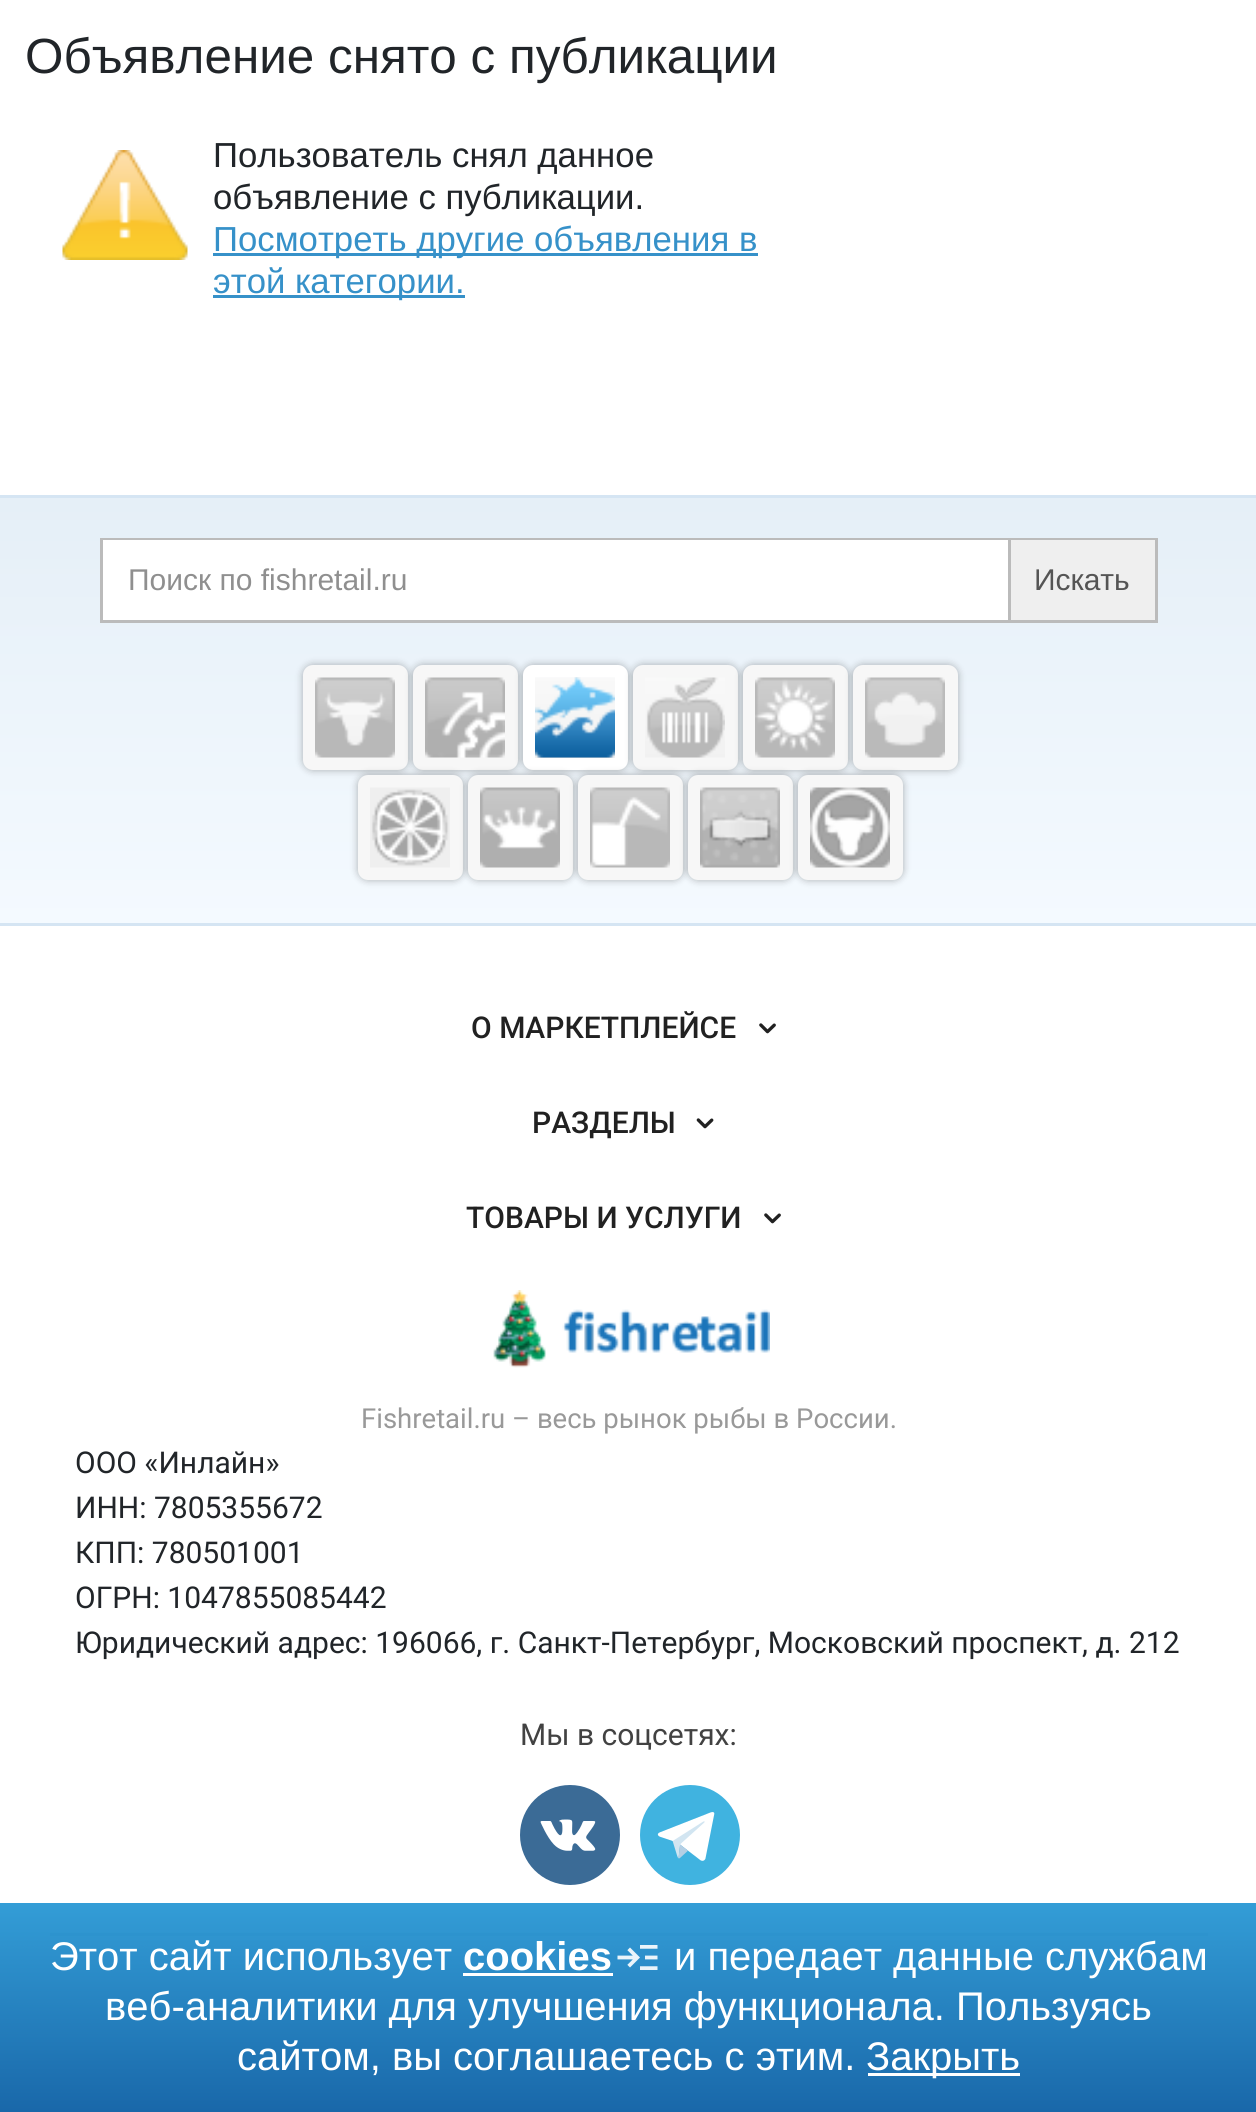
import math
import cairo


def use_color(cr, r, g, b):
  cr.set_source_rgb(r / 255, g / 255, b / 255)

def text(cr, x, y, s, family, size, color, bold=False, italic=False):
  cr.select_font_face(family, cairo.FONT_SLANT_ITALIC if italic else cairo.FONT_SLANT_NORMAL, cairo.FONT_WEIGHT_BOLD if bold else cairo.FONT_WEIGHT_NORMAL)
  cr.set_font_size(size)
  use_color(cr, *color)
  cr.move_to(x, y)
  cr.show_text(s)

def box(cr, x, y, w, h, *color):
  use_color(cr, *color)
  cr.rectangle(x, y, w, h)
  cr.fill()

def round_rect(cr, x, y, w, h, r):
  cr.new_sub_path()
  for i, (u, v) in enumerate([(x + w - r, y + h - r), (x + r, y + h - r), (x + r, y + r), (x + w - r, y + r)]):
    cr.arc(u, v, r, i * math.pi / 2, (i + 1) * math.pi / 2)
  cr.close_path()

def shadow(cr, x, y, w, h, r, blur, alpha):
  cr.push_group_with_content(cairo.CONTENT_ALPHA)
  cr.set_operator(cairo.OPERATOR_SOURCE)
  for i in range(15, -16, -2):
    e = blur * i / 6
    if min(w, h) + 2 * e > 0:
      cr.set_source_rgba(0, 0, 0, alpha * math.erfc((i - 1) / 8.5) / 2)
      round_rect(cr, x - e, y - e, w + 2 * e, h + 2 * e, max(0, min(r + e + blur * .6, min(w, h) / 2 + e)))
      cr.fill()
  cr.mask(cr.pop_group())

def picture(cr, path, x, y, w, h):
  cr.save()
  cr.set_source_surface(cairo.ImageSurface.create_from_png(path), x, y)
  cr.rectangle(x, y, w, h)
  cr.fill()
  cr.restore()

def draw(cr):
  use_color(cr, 255, 255, 255)
  cr.paint()
  picture(cr, "img_01.png", 62, 150, 126, 110)
  box(cr, 213, 253, 545, 3, 54, 145, 201)
  box(cr, 213, 295, 252, 3, 54, 145, 201)
  gradient = cairo.LinearGradient(629, 923, 629, 498)
  gradient.add_color_stop_rgba(0, 0.957, 0.98, 1, 1)
  gradient.add_color_stop_rgba(1, 0.898, 0.937, 0.969, 1)
  cr.set_source(gradient)
  cr.rectangle(0, 498, 1256, 425)
  cr.fill()
  box(cr, 0, 495, 1256, 3, 213, 229, 243)
  box(cr, 0, 923, 1256, 3, 213, 229, 243)
  cr.rectangle(101.5, 539.5, 1055, 82)
  use_color(cr, 187, 187, 187)
  cr.set_line_width(3)
  cr.stroke()
  box(cr, 103, 540, 905, 80, 255, 255, 255)
  box(cr, 1011, 540, 144, 80, 239, 239, 239)
  box(cr, 1008, 540, 3, 80, 187, 187, 187)
  use_color(cr, 0, 0, 0)
  shadow(cr, 303, 665, 105, 105, 10, 4, 0.3)
  use_color(cr, 247, 247, 247)
  round_rect(cr, 303, 665, 105, 105, 10)
  cr.fill()
  picture(cr, "img_02.png", 315, 677, 80, 81)
  use_color(cr, 0, 0, 0)
  shadow(cr, 413, 665, 105, 105, 10, 4, 0.3)
  use_color(cr, 247, 247, 247)
  round_rect(cr, 413, 665, 105, 105, 10)
  cr.fill()
  picture(cr, "img_03.png", 425, 677, 80, 81)
  use_color(cr, 0, 0, 0)
  shadow(cr, 523, 665, 105, 105, 10, 4, 0.3)
  use_color(cr, 255, 255, 255)
  round_rect(cr, 523, 665, 105, 105, 10)
  cr.fill()
  picture(cr, "img_04.png", 535, 677, 80, 81)
  picture(cr, "img_05.png", 535, 677, 80, 81)
  use_color(cr, 0, 0, 0)
  shadow(cr, 633, 665, 105, 105, 10, 4, 0.3)
  use_color(cr, 247, 247, 247)
  round_rect(cr, 633, 665, 105, 105, 10)
  cr.fill()
  picture(cr, "img_06.png", 645, 677, 80, 81)
  use_color(cr, 0, 0, 0)
  shadow(cr, 743, 665, 105, 105, 10, 4, 0.3)
  use_color(cr, 247, 247, 247)
  round_rect(cr, 743, 665, 105, 105, 10)
  cr.fill()
  picture(cr, "img_07.png", 755, 677, 80, 81)
  use_color(cr, 0, 0, 0)
  shadow(cr, 853, 665, 105, 105, 10, 4, 0.3)
  use_color(cr, 247, 247, 247)
  round_rect(cr, 853, 665, 105, 105, 10)
  cr.fill()
  picture(cr, "img_08.png", 865, 677, 80, 81)
  use_color(cr, 0, 0, 0)
  shadow(cr, 358, 775, 105, 105, 10, 4, 0.3)
  use_color(cr, 247, 247, 247)
  round_rect(cr, 358, 775, 105, 105, 10)
  cr.fill()
  picture(cr, "img_09.png", 370, 787, 80, 81)
  use_color(cr, 0, 0, 0)
  shadow(cr, 468, 775, 105, 105, 10, 4, 0.3)
  use_color(cr, 247, 247, 247)
  round_rect(cr, 468, 775, 105, 105, 10)
  cr.fill()
  picture(cr, "img_10.png", 480, 787, 80, 81)
  use_color(cr, 0, 0, 0)
  shadow(cr, 578, 775, 105, 105, 10, 4, 0.3)
  use_color(cr, 247, 247, 247)
  round_rect(cr, 578, 775, 105, 105, 10)
  cr.fill()
  picture(cr, "img_11.png", 590, 787, 80, 81)
  use_color(cr, 0, 0, 0)
  shadow(cr, 688, 775, 105, 105, 10, 4, 0.3)
  use_color(cr, 247, 247, 247)
  round_rect(cr, 688, 775, 105, 105, 10)
  cr.fill()
  picture(cr, "img_12.png", 700, 787, 80, 81)
  use_color(cr, 0, 0, 0)
  shadow(cr, 798, 775, 105, 105, 10, 4, 0.3)
  use_color(cr, 247, 247, 247)
  round_rect(cr, 798, 775, 105, 105, 10)
  cr.fill()
  picture(cr, "img_13.png", 810, 787, 80, 81)
  picture(cr, "img_14.png", 759, 1023, 17, 11)
  picture(cr, "img_15.png", 696, 1118, 18, 11)
  picture(cr, "img_14.png", 764, 1213, 17, 11)
  picture(cr, "img_16.png", 493, 1290, 277, 78)
  picture(cr, "img_17.png", 520, 1785, 100, 100)
  picture(cr, "img_18.png", 640, 1785, 100, 100)
  box(cr, 50, 1933, 1158, 3, 232, 232, 232)
  gradient = cairo.LinearGradient(629, 1903, 629, 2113)
  gradient.add_color_stop_rgba(0, 0.114, 0.576, 0.827, 0.9)
  gradient.add_color_stop_rgba(1, 0, 0.341, 0.627, 0.9)
  cr.set_source(gradient)
  cr.rectangle(0, 1903, 1256, 209)
  cr.fill()
  box(cr, 463, 1973, 150, 3, 255, 255, 255)
  picture(cr, "img_19.png", 617, 1945, 41, 25)
  box(cr, 868, 2073, 152, 3, 255, 255, 255)
  text(cr, 25, 73, "Объявление снято с публикации", "Liberation Sans", 49.4, (33, 37, 41))
  text(cr, 213, 167, "Пользователь снял данное", "Liberation Sans", 34.75, (33, 37, 41))
  text(cr, 213, 209, "объявление с публикации.", "Liberation Sans", 34.75, (33, 37, 41))
  text(cr, 213, 251, "Посмотреть другие", "Liberation Sans", 34.75, (54, 145, 201))
  text(cr, 534, 251, "объявления в", "Liberation Sans", 34.75, (54, 145, 201))
  text(cr, 213, 293, "этой категории.", "Liberation Sans", 34.75, (54, 145, 201))
  text(cr, 128, 590, "Поиск по fishretail.ru", "Liberation Sans", 30, (143, 143, 143))
  text(cr, 1034, 590, "Искать", "Liberation Sans", 30, (85, 85, 85))
  text(cr, 471, 1038, "О МАРКЕТПЛЕЙСЕ", "Roboto Medium", 30, (33, 33, 33))
  text(cr, 532, 1133, "РАЗДЕЛЫ", "Roboto Medium", 30, (33, 33, 33))
  text(cr, 466, 1228, "ТОВАРЫ И УСЛУГИ", "Roboto Medium", 30, (33, 33, 33))
  text(cr, 361, 1428, "Fishretail.ru – весь рынок рыбы в России.", "Roboto", 27.5, (153, 153, 153))
  text(cr, 75, 1473, "ООО «Инлайн»", "Roboto", 30, (33, 37, 41))
  text(cr, 75, 1518, "ИНН: 7805355672", "Roboto", 30, (33, 37, 41))
  text(cr, 75, 1563, "КПП: 780501001", "Roboto", 30, (33, 37, 41))
  text(cr, 75, 1608, "ОГРН: 1047855085442", "Roboto", 30, (33, 37, 41))
  text(cr, 75, 1653, "Юридический адрес: 196066, г. Санкт-Петербург, Московский проспект, д. 212", "Roboto", 30, (33, 37, 41))
  text(cr, 520, 1745, "Мы в соцсетях:", "Roboto", 30, (66, 66, 66))
  text(cr, 50, 1970, "Этот сайт использует", "Liberation Sans", 40, (255, 255, 255))
  text(cr, 463, 1970, "cookies", "Liberation Sans", 40, (255, 255, 255), bold=True)
  text(cr, 674, 1970, "и передает данные службам", "Liberation Sans", 40, (255, 255, 255))
  text(cr, 105, 2020, "веб-аналитики для улучшения функционала. Пользуясь", "Liberation Sans", 40, (255, 255, 255))
  text(cr, 237, 2070, "сайтом, вы соглашаетесь с этим.", "Liberation Sans", 40, (255, 255, 255))
  text(cr, 866, 2070, "Закрыть", "Liberation Sans", 40, (255, 255, 255))


surface = cairo.ImageSurface(cairo.FORMAT_RGB24, 1256, 2112)
cr = cairo.Context(surface)
options = cairo.FontOptions()
options.set_hint_metrics(cairo.HINT_METRICS_OFF)
options.set_hint_style(cairo.HINT_STYLE_NONE)
cr.set_font_options(options)
cr.set_miter_limit(4)
draw(cr)
surface.write_to_png("out.png")
